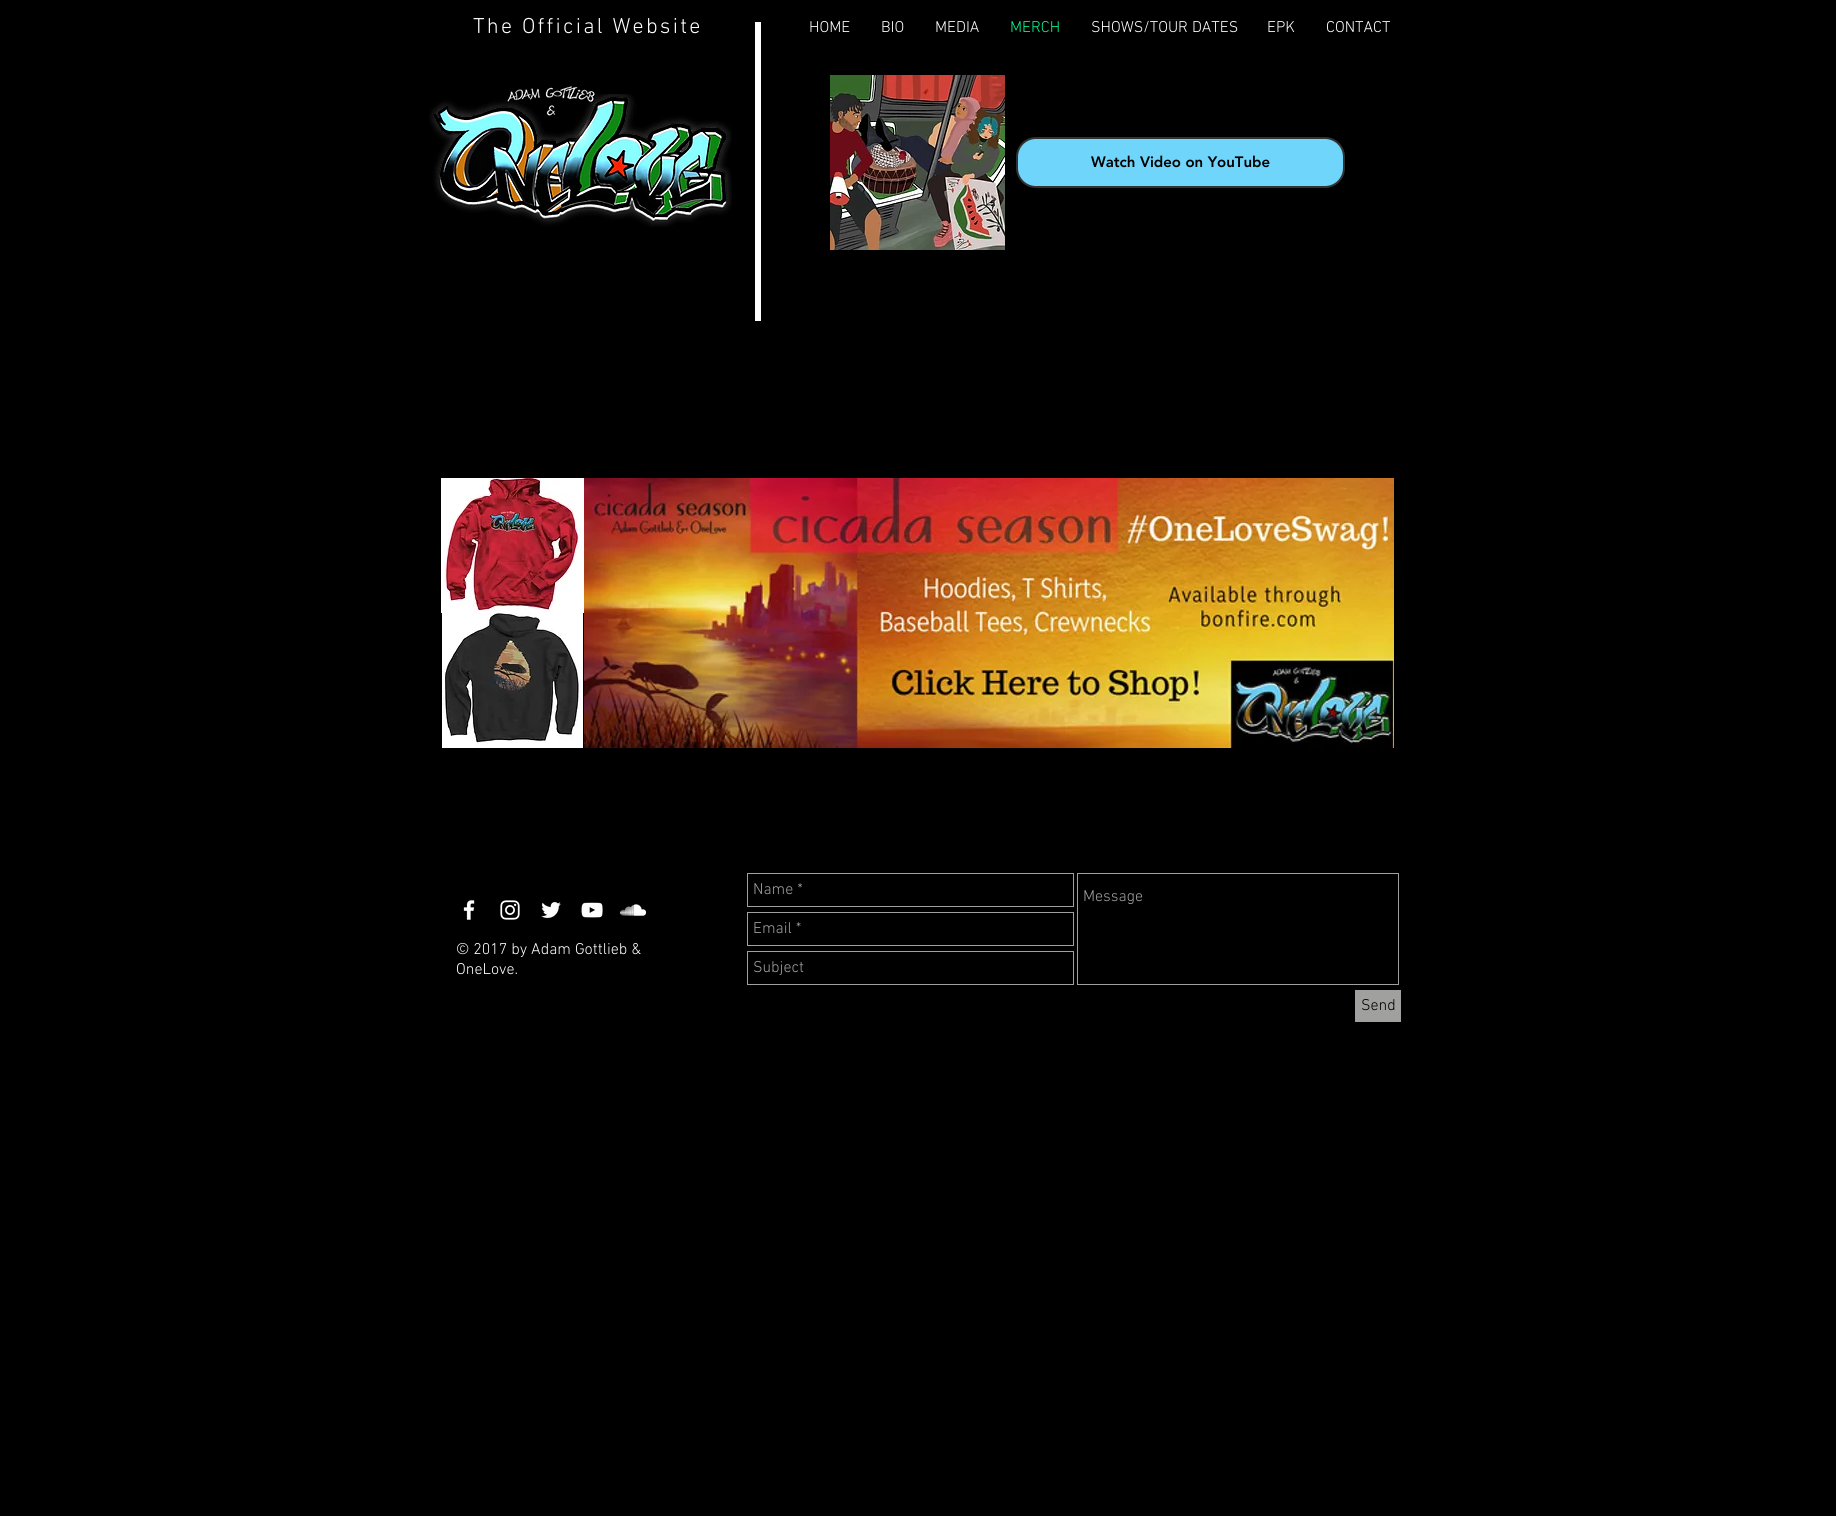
import math
import cairo


def use_color(cr, r, g, b):
  cr.set_source_rgb(r / 255, g / 255, b / 255)

def text(cr, x, y, s, family, size, color, bold=False, italic=False):
  cr.select_font_face(family, cairo.FONT_SLANT_ITALIC if italic else cairo.FONT_SLANT_NORMAL, cairo.FONT_WEIGHT_BOLD if bold else cairo.FONT_WEIGHT_NORMAL)
  cr.set_font_size(size)
  use_color(cr, *color)
  cr.move_to(x, y)
  cr.show_text(s)

def spaced_text(cr, x, y, s, letter, word):
  cr.move_to(x, y)
  for ch in s:
    cr.show_text(ch)
    cr.rel_move_to(letter + word * (ch == ' '), 0)

def box(cr, x, y, w, h, *color):
  use_color(cr, *color)
  cr.rectangle(x, y, w, h)
  cr.fill()

def round_rect(cr, x, y, w, h, r):
  cr.new_sub_path()
  for i, (u, v) in enumerate([(x + w - r, y + h - r), (x + r, y + h - r), (x + r, y + r), (x + w - r, y + r)]):
    cr.arc(u, v, r, i * math.pi / 2, (i + 1) * math.pi / 2)
  cr.close_path()

def picture(cr, path, x, y, w, h):
  cr.save()
  cr.set_source_surface(cairo.ImageSurface.create_from_png(path), x, y)
  cr.rectangle(x, y, w, h)
  cr.fill()
  cr.restore()

def draw(cr):
  use_color(cr, 0, 0, 0)
  cr.paint()
  box(cr, 755, 22, 6, 299, 255, 255, 255)
  picture(cr, "img_01.png", 429, 86, 303, 141)
  picture(cr, "img_02.png", 830, 75, 175, 175)
  use_color(cr, 112, 213, 250)
  round_rect(cr, 1017, 138, 327, 49, 19)
  cr.fill_preserve()
  use_color(cr, 50, 50, 50)
  cr.stroke()
  picture(cr, "img_03.png", 441, 478, 143, 135)
  picture(cr, "img_04.png", 584, 478, 810, 270)
  picture(cr, "img_05.png", 442, 613, 141, 135)
  picture(cr, "img_06.png", 463, 900, 12, 20)
  picture(cr, "img_07.png", 500, 900, 20, 20)
  picture(cr, "img_08.png", 541, 902, 20, 17)
  picture(cr, "img_09.png", 581, 902, 22, 16)
  picture(cr, "img_10.png", 620, 904, 26, 12)
  cr.rectangle(747.5, 873.5, 326, 33)
  use_color(cr, 160, 160, 159)
  cr.set_line_width(1)
  cr.stroke()
  cr.rectangle(1077.5, 873.5, 321, 111)
  cr.stroke()
  cr.rectangle(747.5, 912.5, 326, 33)
  cr.stroke()
  cr.rectangle(747.5, 951.5, 326, 33)
  cr.stroke()
  box(cr, 1355, 990, 46, 32, 160, 160, 159)
  cr.select_font_face("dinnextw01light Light")
  cr.set_font_size(22)
  use_color(cr, 255, 255, 255)
  spaced_text(cr, 473, 33, "The Official Website", 2.25, 0)
  text(cr, 809, 32, "HOME", "dinnextw01light Light", 16, (255, 255, 255))
  text(cr, 881, 32, "BIO", "dinnextw01light Light", 16, (255, 255, 255))
  text(cr, 935, 32, "MEDIA", "dinnextw01light Light", 16, (255, 255, 255))
  text(cr, 1010, 32, "MERCH", "dinnextw01light Light", 16, (7, 247, 145))
  text(cr, 1091, 32, "SHOWS/TOUR DATES", "dinnextw01light Light", 16, (255, 255, 255))
  text(cr, 1267, 32, "EPK", "dinnextw01light Light", 16, (255, 255, 255))
  text(cr, 1326, 32, "CONTACT", "dinnextw01light Light", 16, (255, 255, 255))
  text(cr, 1091, 167, "Watch Video on YouTube", "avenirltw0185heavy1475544 Black", 15, (0, 0, 0))
  text(cr, 753, 894, "Name *", "dinnextw01light Light", 16, (160, 160, 159))
  text(cr, 1083, 901, "Message", "dinnextw01light Light", 16, (160, 160, 159))
  text(cr, 753, 933, "Email *", "dinnextw01light Light", 16, (160, 160, 159))
  text(cr, 753, 972, "Subject", "dinnextw01light Light", 16, (160, 160, 159))
  text(cr, 1361, 1010, "Send", "dinnextw01light Light", 16, (0, 0, 0))
  text(cr, 456, 954, "© 2017 by Adam Gottlieb &", "dinnextw01light Light", 16, (255, 255, 255))
  text(cr, 456, 974, "OneLove.", "dinnextw01light Light", 16, (255, 255, 255))


surface = cairo.ImageSurface(cairo.FORMAT_RGB24, 1836, 1516)
cr = cairo.Context(surface)
options = cairo.FontOptions()
options.set_hint_metrics(cairo.HINT_METRICS_OFF)
options.set_hint_style(cairo.HINT_STYLE_NONE)
cr.set_font_options(options)
cr.set_miter_limit(4)
draw(cr)
surface.write_to_png("out.png")
